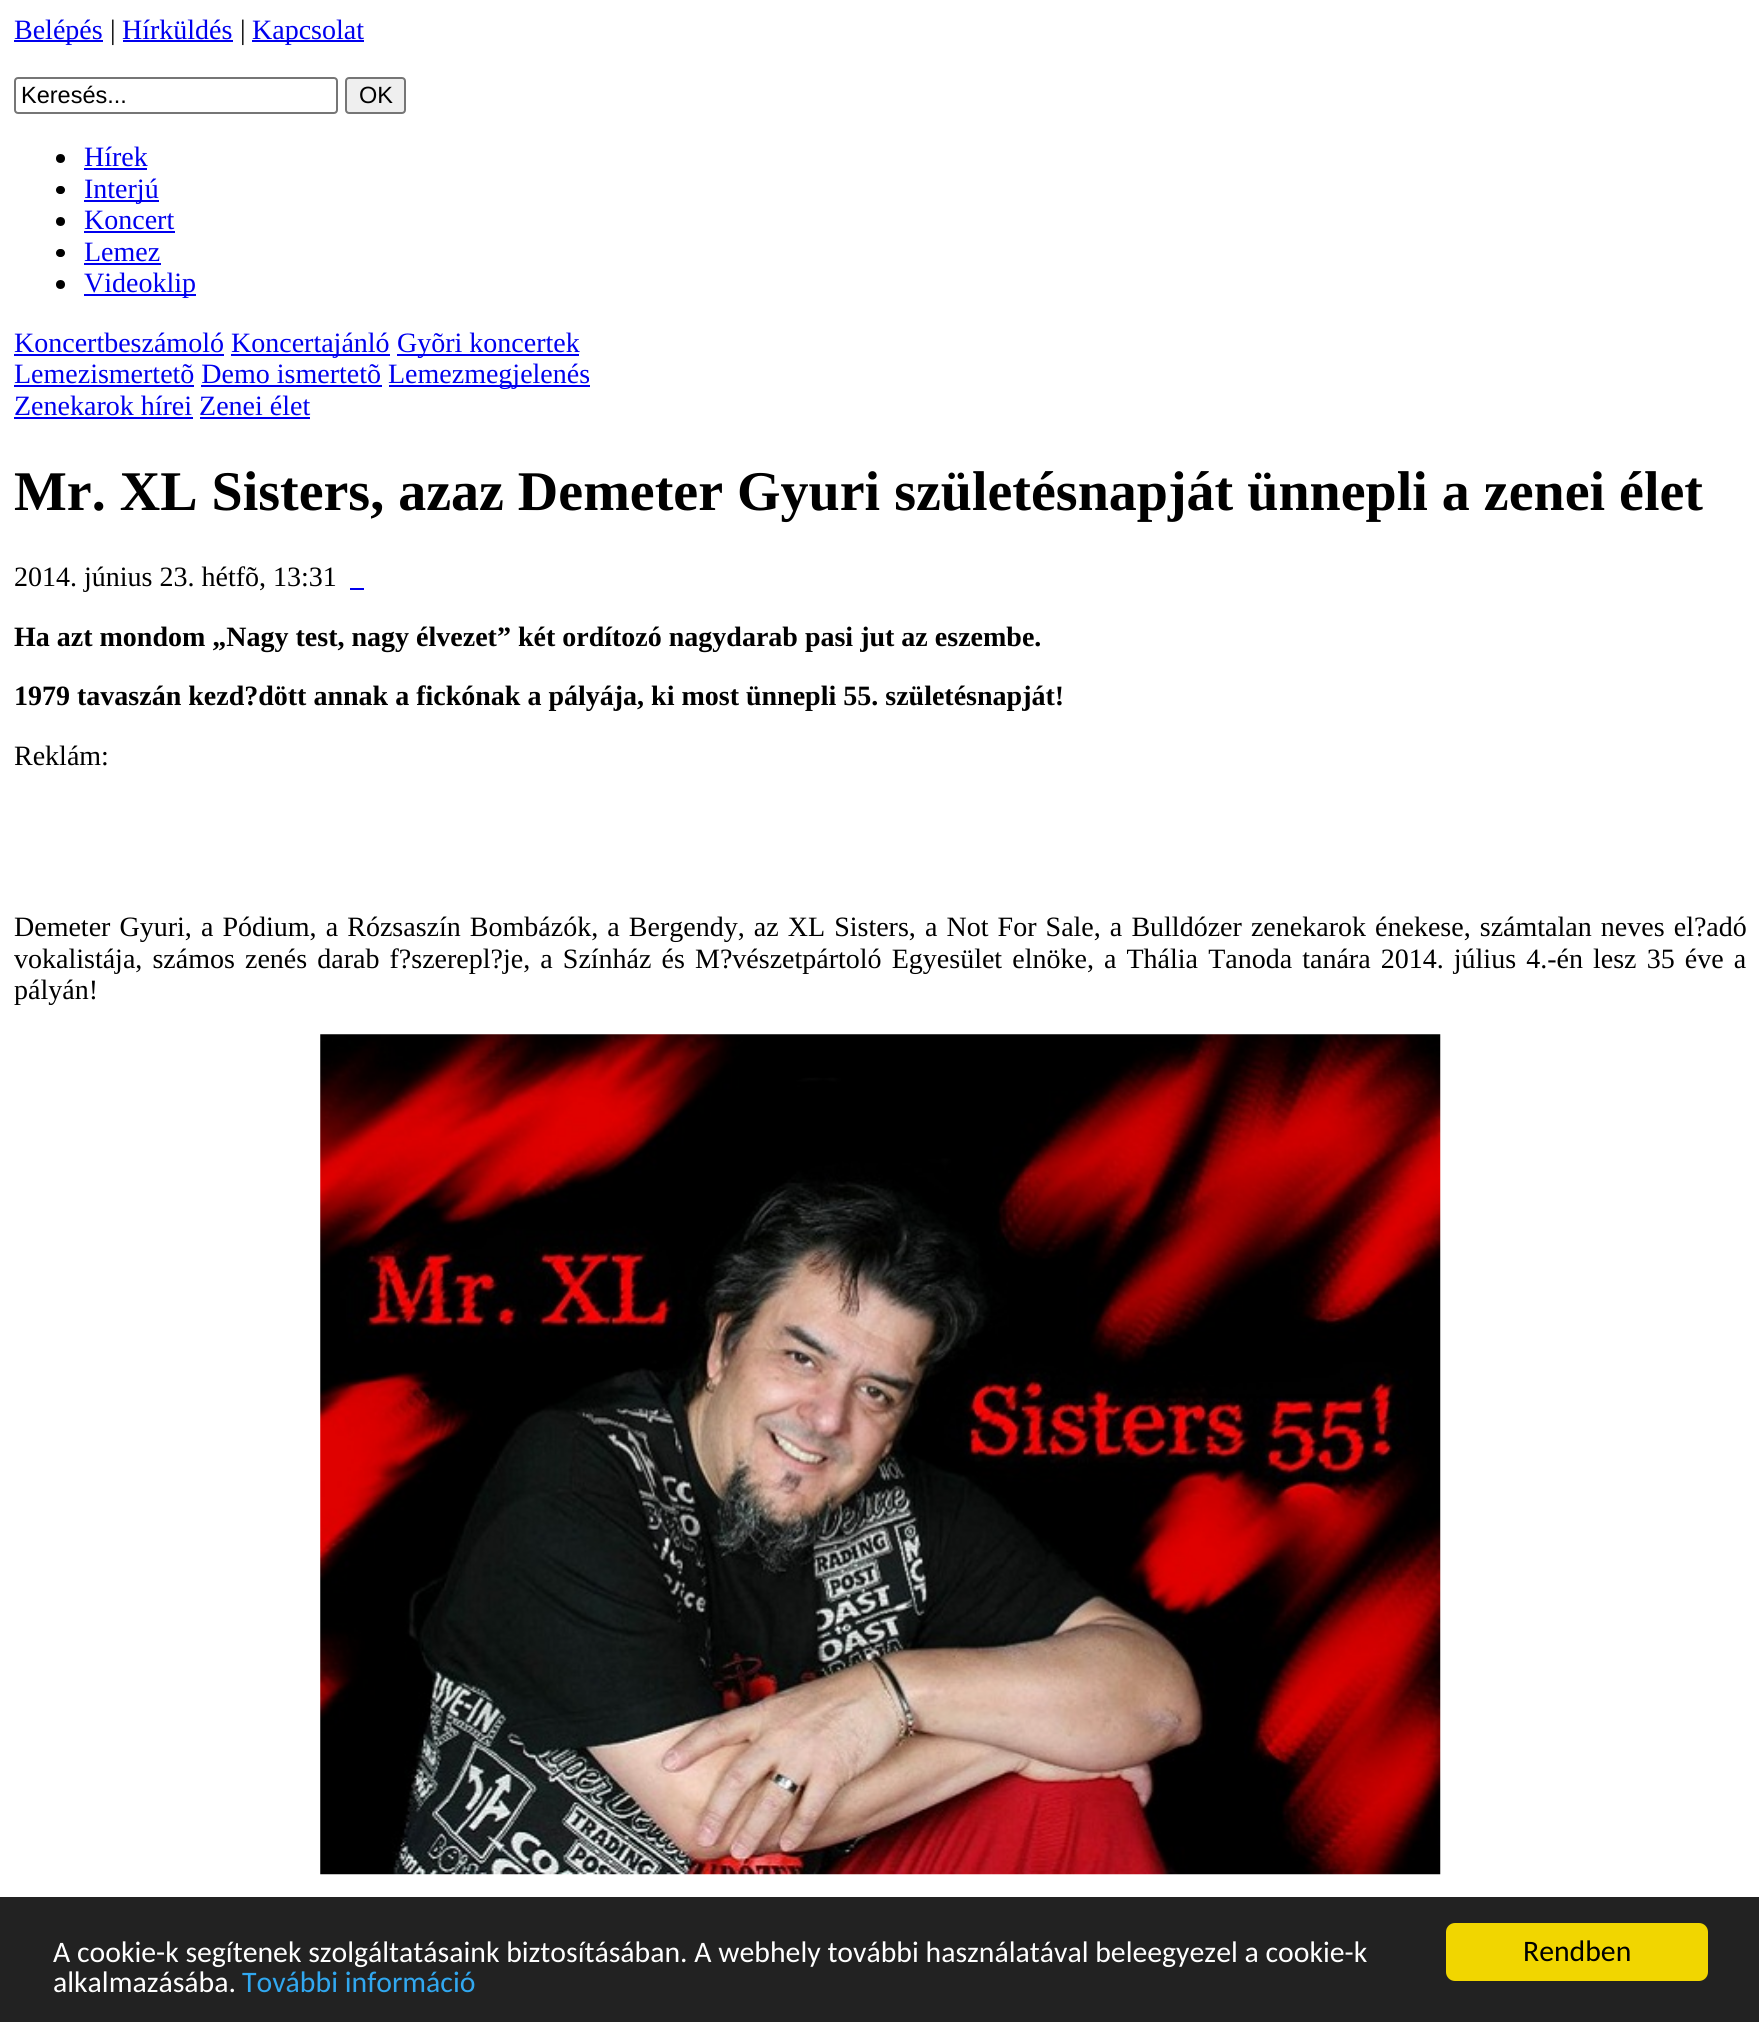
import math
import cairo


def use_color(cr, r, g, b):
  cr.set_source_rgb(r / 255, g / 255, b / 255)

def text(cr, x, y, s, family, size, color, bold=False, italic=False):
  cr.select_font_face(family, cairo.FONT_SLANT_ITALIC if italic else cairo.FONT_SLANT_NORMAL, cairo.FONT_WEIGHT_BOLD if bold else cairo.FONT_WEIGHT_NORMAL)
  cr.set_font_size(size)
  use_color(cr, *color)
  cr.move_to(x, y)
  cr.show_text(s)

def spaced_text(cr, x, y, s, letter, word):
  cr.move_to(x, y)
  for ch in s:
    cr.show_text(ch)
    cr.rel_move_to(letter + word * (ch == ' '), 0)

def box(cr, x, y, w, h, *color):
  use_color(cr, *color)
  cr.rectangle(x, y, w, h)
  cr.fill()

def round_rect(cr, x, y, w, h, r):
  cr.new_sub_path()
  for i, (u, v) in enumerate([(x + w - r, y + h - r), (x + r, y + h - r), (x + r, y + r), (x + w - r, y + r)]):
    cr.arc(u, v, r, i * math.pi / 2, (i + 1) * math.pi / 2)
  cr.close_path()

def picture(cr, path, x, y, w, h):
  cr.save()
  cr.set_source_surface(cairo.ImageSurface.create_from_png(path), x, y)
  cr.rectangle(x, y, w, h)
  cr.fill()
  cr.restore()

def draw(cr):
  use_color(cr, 255, 255, 255)
  cr.paint()
  box(cr, 14, 40, 89, 2, 0, 0, 238)
  box(cr, 123, 40, 110, 2, 0, 0, 238)
  box(cr, 252, 40, 112, 2, 0, 0, 238)
  round_rect(cr, 15, 78, 322, 35, 3)
  use_color(cr, 118, 118, 118)
  cr.stroke()
  use_color(cr, 239, 239, 239)
  round_rect(cr, 346, 78, 59, 35, 3)
  cr.fill_preserve()
  use_color(cr, 118, 118, 118)
  cr.stroke()
  use_color(cr, 0, 0, 0)
  cr.arc(60.5, 158.5, 4.5, 0, 2 * math.pi)
  cr.fill()
  box(cr, 84, 168, 63, 2, 0, 0, 238)
  use_color(cr, 0, 0, 0)
  round_rect(cr, 56, 186, 9, 8, 4)
  cr.fill()
  box(cr, 84, 200, 75, 2, 0, 0, 238)
  use_color(cr, 0, 0, 0)
  cr.arc(60.5, 221.5, 4.5, 0, 2 * math.pi)
  cr.fill()
  box(cr, 84, 231, 91, 2, 0, 0, 238)
  use_color(cr, 0, 0, 0)
  round_rect(cr, 56, 249, 9, 8, 4)
  cr.fill()
  box(cr, 84, 263, 77, 2, 0, 0, 238)
  use_color(cr, 0, 0, 0)
  cr.arc(60.5, 284.5, 4.5, 0, 2 * math.pi)
  cr.fill()
  box(cr, 84, 294, 112, 2, 0, 0, 238)
  box(cr, 14, 354, 210, 2, 0, 0, 238)
  box(cr, 231, 354, 159, 2, 0, 0, 238)
  box(cr, 397, 354, 182, 2, 0, 0, 238)
  box(cr, 14, 385, 180, 2, 0, 0, 238)
  box(cr, 389, 385, 201, 2, 0, 0, 238)
  box(cr, 201, 385, 181, 2, 0, 0, 238)
  box(cr, 14, 417, 179, 2, 0, 0, 238)
  box(cr, 200, 417, 110, 2, 0, 0, 238)
  box(cr, 350, 588, 14, 2, 0, 0, 238)
  picture(cr, "img_01.png", 320, 1034, 1121, 841)
  box(cr, 0, 1897, 1759, 125, 34, 34, 34)
  use_color(cr, 241, 214, 0)
  round_rect(cr, 1446, 1923, 262, 58, 9)
  cr.fill()
  text(cr, 14, 39, "Belépés", "Liberation Serif", 28, (0, 0, 238))
  text(cr, 110, 39, "|", "Liberation Serif", 28, (0, 0, 0))
  text(cr, 122, 39, "Hírküldés", "Liberation Serif", 28, (0, 0, 238))
  text(cr, 240, 39, "|", "Liberation Serif", 28, (0, 0, 0))
  text(cr, 252, 39, "Kapcsolat", "Liberation Serif", 28, (0, 0, 238))
  text(cr, 21, 103, "Keresés...", "Liberation Sans", 23.5, (0, 0, 0))
  text(cr, 359, 103, "OK", "Liberation Sans", 23.5, (0, 0, 0))
  text(cr, 84, 166, "Hírek", "Liberation Serif", 28, (0, 0, 238))
  text(cr, 84, 198, "Interjú", "Liberation Serif", 28, (0, 0, 238))
  text(cr, 84, 229, "Koncert", "Liberation Serif", 28, (0, 0, 238))
  text(cr, 84, 261, "Lemez", "Liberation Serif", 28, (0, 0, 238))
  text(cr, 84, 292, "Videoklip", "Liberation Serif", 28, (0, 0, 238))
  text(cr, 14, 352, "Koncertbeszámoló", "Liberation Serif", 28, (0, 0, 238))
  text(cr, 231, 352, "Koncertajánló", "Liberation Serif", 28, (0, 0, 238))
  text(cr, 397, 352, "Gyõri koncertek", "Liberation Serif", 28, (0, 0, 238))
  text(cr, 14, 383, "Lemezismertetõ Demo ismertetõ", "Liberation Serif", 28, (0, 0, 238))
  text(cr, 388, 383, "Lemezmegjelenés", "Liberation Serif", 28, (0, 0, 238))
  text(cr, 14, 415, "Zenekarok hírei Zenei élet", "Liberation Serif", 28, (0, 0, 238))
  text(cr, 14, 510, "Mr. XL Sisters, azaz Demeter Gyuri születésnapját ünnepli a zenei élet", "Liberation Serif", 56, (0, 0, 0), bold=True)
  text(cr, 14, 586, "2014. június 23. hétfõ, 13:31", "Liberation Serif", 28, (0, 0, 0))
  text(cr, 14, 646, "Ha azt mondom „Nagy test, nagy élvezet” két ordítozó nagydarab pasi jut az eszembe.", "Liberation Serif", 28, (0, 0, 0), bold=True)
  text(cr, 14, 705, "1979 tavaszán kezd?dött annak a fickónak a pályája, ki most ünnepli 55. születésnapját!", "Liberation Serif", 28, (0, 0, 0), bold=True)
  text(cr, 14, 765, "Reklám:", "Liberation Serif", 28, (0, 0, 0))
  spaced_text(cr, 14, 936, "Demeter Gyuri, a Pódium, a Rózsaszín Bombázók, a Bergendy, az XL Sisters, a Not For Sale, a Bulldózer zenekarok énekese, számtalan neves el?adó", 0, 2.1)
  spaced_text(cr, 14, 968, "vokalistája, számos zenés darab f?szerepl?je, a Színház és M?vészetpártoló Egyesület elnöke, a Thália Tanoda tanára 2014. július 4.-én lesz 35 éve a", 0, 3.1)
  text(cr, 14, 999, "pályán!", "Liberation Serif", 28, (0, 0, 0))
  text(cr, 53, 1962, "A cookie-k segítenek szolgáltatásaink biztosításában. A webhely további használatával beleegyezel a cookie-k", "Carlito", 29.75, (255, 255, 255))
  text(cr, 53, 1992, "alkalmazásába.", "Carlito", 29.75, (255, 255, 255))
  text(cr, 242, 1992, "További információ", "Carlito", 29.75, (49, 168, 240))
  text(cr, 1523, 1961, "Rendben", "Carlito", 29.75, (0, 0, 0))


surface = cairo.ImageSurface(cairo.FORMAT_RGB24, 1759, 2022)
cr = cairo.Context(surface)
options = cairo.FontOptions()
options.set_hint_metrics(cairo.HINT_METRICS_OFF)
options.set_hint_style(cairo.HINT_STYLE_NONE)
cr.set_font_options(options)
cr.set_miter_limit(4)
draw(cr)
surface.write_to_png("out.png")
